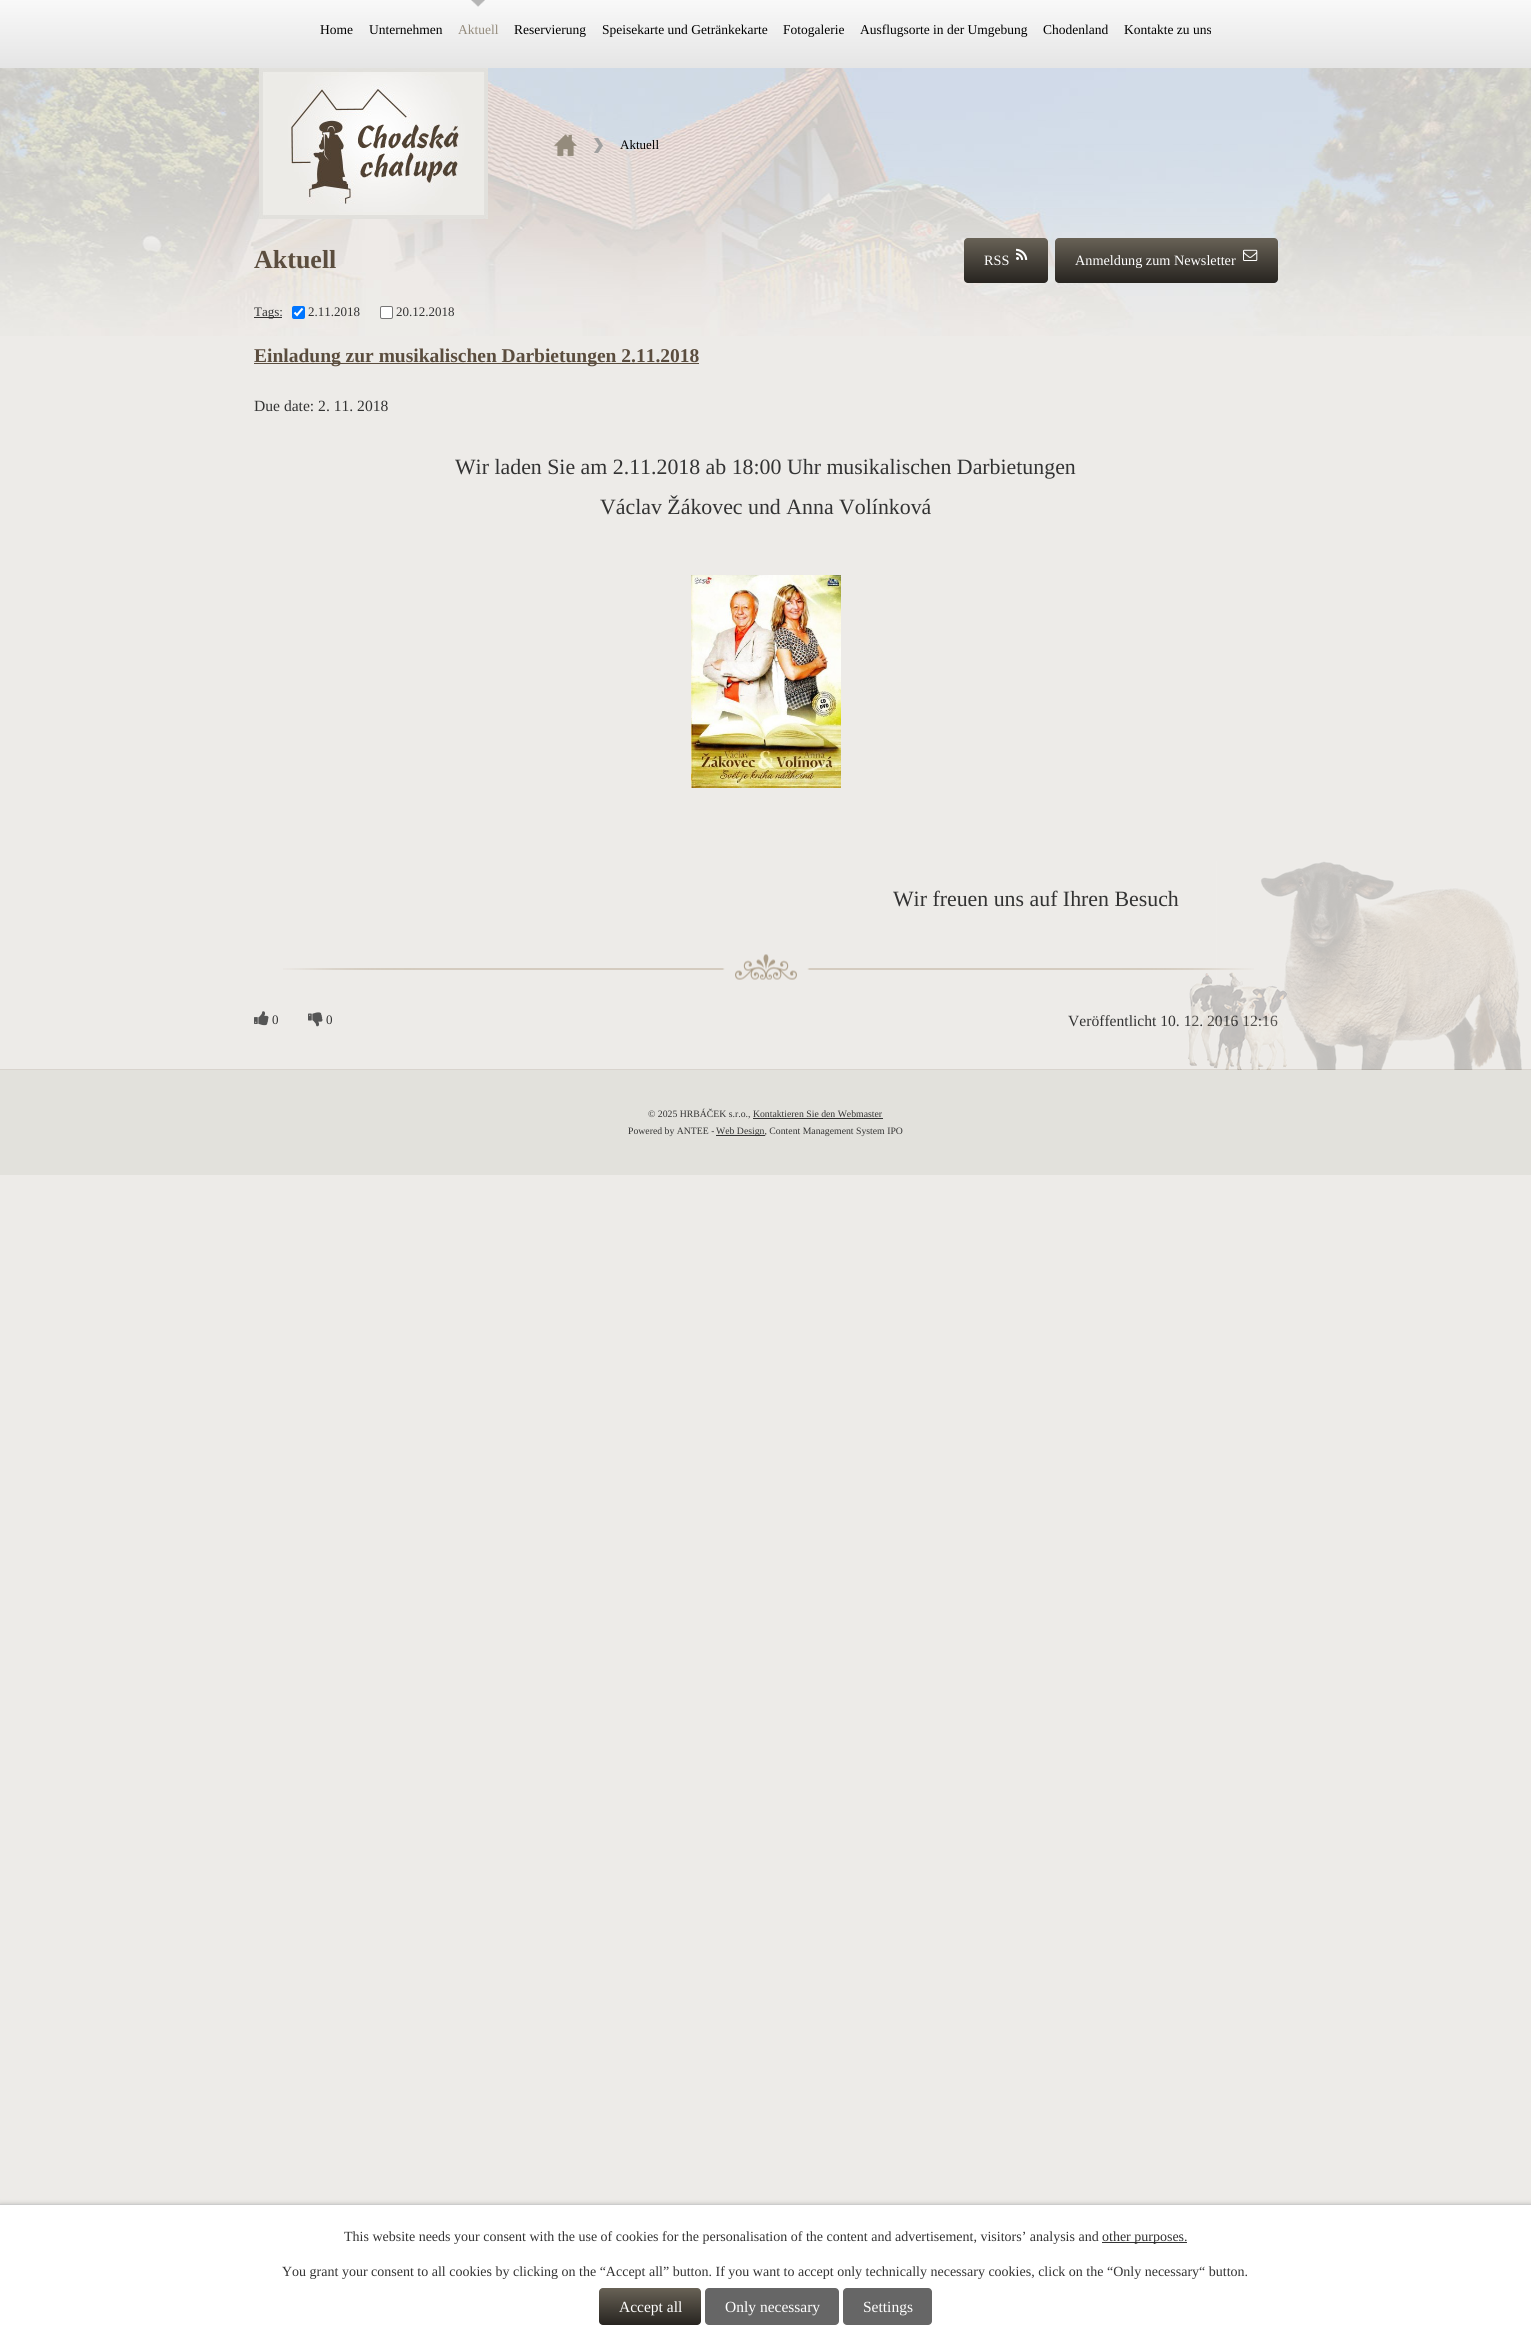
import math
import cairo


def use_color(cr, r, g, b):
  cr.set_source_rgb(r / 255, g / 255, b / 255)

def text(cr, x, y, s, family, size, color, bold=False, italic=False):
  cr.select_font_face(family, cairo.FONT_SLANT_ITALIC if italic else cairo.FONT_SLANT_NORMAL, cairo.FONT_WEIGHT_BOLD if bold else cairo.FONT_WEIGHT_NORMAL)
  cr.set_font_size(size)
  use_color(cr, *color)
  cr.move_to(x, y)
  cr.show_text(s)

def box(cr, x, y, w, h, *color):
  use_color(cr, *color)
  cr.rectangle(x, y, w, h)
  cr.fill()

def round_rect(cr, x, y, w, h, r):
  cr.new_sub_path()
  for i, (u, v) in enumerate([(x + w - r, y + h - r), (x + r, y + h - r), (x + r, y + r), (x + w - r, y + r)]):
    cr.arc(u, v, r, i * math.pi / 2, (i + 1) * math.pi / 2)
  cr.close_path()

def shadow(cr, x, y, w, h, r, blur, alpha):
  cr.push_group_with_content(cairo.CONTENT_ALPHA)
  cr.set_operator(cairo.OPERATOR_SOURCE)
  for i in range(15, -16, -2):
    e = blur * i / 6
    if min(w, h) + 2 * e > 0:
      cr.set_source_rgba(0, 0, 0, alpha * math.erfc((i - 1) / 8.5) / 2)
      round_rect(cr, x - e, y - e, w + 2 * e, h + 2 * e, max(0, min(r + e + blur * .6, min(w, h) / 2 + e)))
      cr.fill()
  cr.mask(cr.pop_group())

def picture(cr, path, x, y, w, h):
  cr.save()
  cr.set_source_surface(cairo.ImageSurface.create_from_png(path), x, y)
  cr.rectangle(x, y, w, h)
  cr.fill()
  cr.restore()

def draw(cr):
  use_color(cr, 237, 235, 232)
  cr.paint()
  picture(cr, "img_01.png", 0, 68, 1531, 268)
  gradient = cairo.LinearGradient(766, 0, 766, 68)
  gradient.add_color_stop_rgba(0, 0.976, 0.976, 0.976, 1)
  gradient.add_color_stop_rgba(1, 0.898, 0.898, 0.898, 1)
  cr.set_source(gradient)
  cr.rectangle(0, 0, 1531, 68)
  cr.fill()
  picture(cr, "img_02.png", 471, 0, 14, 7)
  picture(cr, "img_03.png", 259, 68, 229, 151)
  picture(cr, "img_04.png", 554, 134, 23, 22)
  picture(cr, "img_05.png", 594, 138, 9, 15)
  gradient = cairo.LinearGradient(964, 238, 964, 283)
  gradient.add_color_stop_rgba(0, 0.408, 0.384, 0.337, 1)
  gradient.add_color_stop_rgba(1, 0.153, 0.141, 0.125, 1)
  cr.set_source(gradient)
  round_rect(cr, 964, 238, 84, 45, 4)
  cr.fill()
  picture(cr, "img_06.png", 1016, 248, 12, 12)
  gradient = cairo.LinearGradient(1055, 238, 1055, 283)
  gradient.add_color_stop_rgba(0, 0.408, 0.384, 0.337, 1)
  gradient.add_color_stop_rgba(1, 0.153, 0.141, 0.125, 1)
  cr.set_source(gradient)
  round_rect(cr, 1055, 238, 223, 45, 4)
  cr.fill()
  picture(cr, "img_07.png", 1243, 249, 15, 12)
  box(cr, 254, 317, 28, 1, 51, 51, 51)
  use_color(cr, 0, 117, 255)
  round_rect(cr, 292, 306, 13, 13, 2)
  cr.fill()
  cr.new_path()
  cr.move_to(294.5, 312.5)
  cr.line_to(297, 315)
  cr.line_to(302.5, 308.5)
  use_color(cr, 255, 255, 255)
  cr.set_line_width(2.1)
  cr.stroke()
  round_rect(cr, 380.5, 306.5, 12, 12, 1.5)
  cr.fill_preserve()
  use_color(cr, 118, 118, 118)
  cr.set_line_width(1)
  cr.stroke()
  box(cr, 254, 363, 445, 1, 91, 77, 62)
  picture(cr, "img_08.png", 691, 575, 150, 213)
  picture(cr, "img_09.png", 283, 954, 971, 26)
  picture(cr, "img_10.png", 254, 1011, 15, 15)
  picture(cr, "img_11.png", 308, 1012, 15, 15)
  box(cr, 0, 1070, 1531, 105, 226, 225, 220)
  box(cr, 0, 1069, 1531, 1, 216, 211, 205)
  box(cr, 753, 1118, 130, 1, 51, 51, 51)
  box(cr, 716, 1135, 49, 1, 51, 51, 51)
  use_color(cr, 0, 0, 0)
  shadow(cr, 0, 2204, 1531, 127, 0, 2.5, 0.2)
  box(cr, 0, 2205, 1531, 126, 255, 255, 255)
  box(cr, 0, 2204, 1531, 1, 204, 204, 204)
  box(cr, 1102, 2242, 85, 1, 51, 51, 51)
  gradient = cairo.LinearGradient(599, 2288, 599, 2325)
  gradient.add_color_stop_rgba(0, 0.408, 0.384, 0.337, 1)
  gradient.add_color_stop_rgba(1, 0.153, 0.141, 0.125, 1)
  cr.set_source(gradient)
  round_rect(cr, 599, 2288, 102, 37, 4)
  cr.fill()
  use_color(cr, 102, 102, 102)
  round_rect(cr, 705, 2288, 134, 37, 4)
  cr.fill()
  round_rect(cr, 843, 2288, 89, 37, 4)
  cr.fill()
  text(cr, 320, 34, "Home", "Liberation Serif", 13.5, (0, 0, 0))
  text(cr, 369, 34, "Unternehmen", "Liberation Serif", 13.5, (0, 0, 0))
  text(cr, 458, 34, "Aktuell", "Liberation Serif", 13.5, (148, 139, 124))
  text(cr, 514, 34, "Reservierung", "Liberation Serif", 13.5, (0, 0, 0))
  text(cr, 602, 34, "Speisekarte und Getränkekarte", "Liberation Serif", 13.5, (0, 0, 0))
  text(cr, 783, 34, "Fotogalerie", "Liberation Serif", 13.5, (0, 0, 0))
  text(cr, 860, 34, "Ausflugsorte in der Umgebung", "Liberation Serif", 13.5, (0, 0, 0))
  text(cr, 1043, 34, "Chodenland", "Liberation Serif", 13.5, (0, 0, 0))
  text(cr, 1124, 34, "Kontakte zu uns", "Liberation Serif", 13.5, (0, 0, 0))
  text(cr, 620, 149, "Aktuell", "Liberation Serif", 13, (0, 0, 0))
  text(cr, 254, 268, "Aktuell", "Liberation Serif", 26, (91, 77, 62), bold=True)
  text(cr, 984, 265, "RSS", "Liberation Serif", 14.25, (255, 255, 255))
  text(cr, 1075, 265, "Anmeldung zum Newsletter", "Liberation Serif", 14.25, (255, 255, 255))
  text(cr, 254, 316, "Tags:", "Liberation Serif", 13, (51, 51, 51))
  text(cr, 308, 316, "2.11.2018", "Liberation Serif", 13, (51, 51, 51))
  text(cr, 396, 316, "20.12.2018", "Liberation Serif", 13, (51, 51, 51))
  text(cr, 254, 362, "Einladung zur musikalischen Darbietungen 2.11.2018", "Liberation Serif", 19.5, (91, 77, 62), bold=True)
  text(cr, 254, 411, "Due date: 2. 11. 2018", "Liberation Serif", 15.6, (51, 51, 51))
  text(cr, 455, 474, "Wir laden Sie am 2.11.2018 ab 18:00 Uhr musikalischen Darbietungen", "Liberation Serif", 21.85, (51, 51, 51))
  text(cr, 600, 514, "Václav Žákovec und Anna Volínková", "Liberation Serif", 21.85, (51, 51, 51))
  text(cr, 893, 906, "Wir freuen uns auf Ihren Besuch", "Liberation Serif", 21.85, (51, 51, 51))
  text(cr, 272, 1024, "0", "Liberation Serif", 13, (51, 51, 51))
  text(cr, 326, 1024, "0", "Liberation Serif", 13, (51, 51, 51))
  text(cr, 1068, 1026, "Veröffentlicht 10. 12. 2016 12:16", "Liberation Serif", 15.6, (51, 51, 51))
  picture(cr, "img_12.png", 1188, 861, 334, 209)
  text(cr, 648, 1117, "© 2025 HRBÁČEK s.r.o., Kontaktieren Sie den Webmaster", "Liberation Serif", 9.75, (51, 51, 51))
  text(cr, 628, 1134, "Powered by ANTEE -", "Liberation Serif", 9.75, (51, 51, 51))
  text(cr, 716, 1134, "Web Design, Content Management System IPO", "Liberation Serif", 9.75, (51, 51, 51))
  text(cr, 344, 2241, "This website needs your consent with the use of cookies for the personalisation of the content and advertisement, visitors’ analysis and", "Liberation Serif", 14, (51, 51, 51))
  text(cr, 1102, 2241, "other purposes.", "Liberation Serif", 14, (51, 51, 51))
  text(cr, 282, 2276, "You grant your consent to all cookies by clicking on the “Accept all” button. If you want to accept only technically necessary cookies, click on the “Only necessary“ button.", "Liberation Serif", 14, (51, 51, 51))
  text(cr, 619, 2312, "Accept all", "Liberation Serif", 15.5, (255, 255, 255))
  text(cr, 725, 2312, "Only necessary", "Liberation Serif", 15.5, (255, 255, 255))
  text(cr, 863, 2312, "Settings", "Liberation Serif", 15.5, (255, 255, 255))


surface = cairo.ImageSurface(cairo.FORMAT_RGB24, 1531, 2331)
cr = cairo.Context(surface)
options = cairo.FontOptions()
options.set_hint_metrics(cairo.HINT_METRICS_OFF)
options.set_hint_style(cairo.HINT_STYLE_NONE)
cr.set_font_options(options)
cr.set_miter_limit(4)
draw(cr)
surface.write_to_png("out.png")
